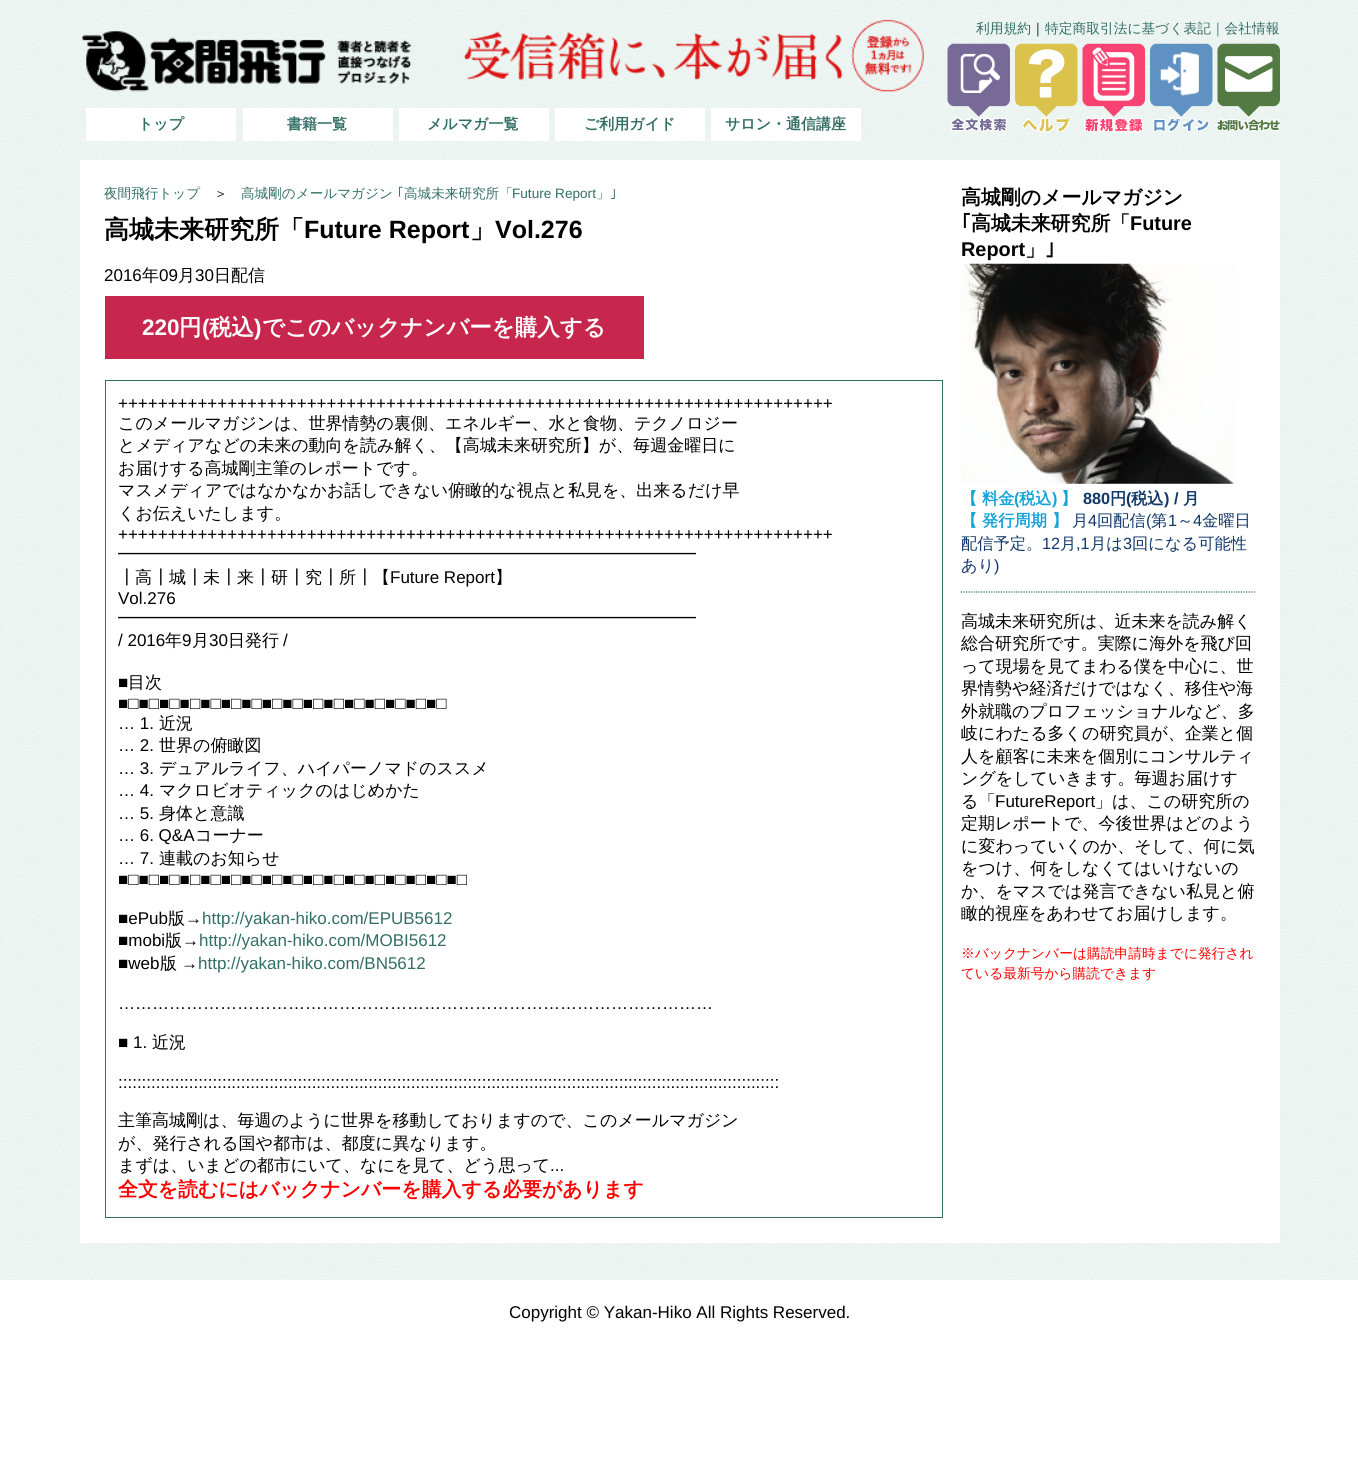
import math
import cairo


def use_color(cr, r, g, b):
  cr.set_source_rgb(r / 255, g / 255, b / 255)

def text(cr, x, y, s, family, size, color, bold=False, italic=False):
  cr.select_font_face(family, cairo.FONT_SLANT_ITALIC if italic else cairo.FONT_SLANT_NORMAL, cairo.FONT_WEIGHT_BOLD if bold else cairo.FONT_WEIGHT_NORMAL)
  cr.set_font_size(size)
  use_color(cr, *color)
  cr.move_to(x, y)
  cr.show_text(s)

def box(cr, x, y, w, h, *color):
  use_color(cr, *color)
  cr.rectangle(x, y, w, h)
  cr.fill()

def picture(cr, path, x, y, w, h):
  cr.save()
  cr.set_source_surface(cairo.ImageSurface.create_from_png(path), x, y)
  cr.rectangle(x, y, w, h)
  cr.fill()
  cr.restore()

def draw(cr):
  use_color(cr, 255, 255, 255)
  cr.paint()
  picture(cr, "img_01.png", 0, 0, 1358, 1280)
  picture(cr, "img_02.png", 82, 31, 330, 61)
  picture(cr, "img_03.png", 463, 19, 461, 73)
  box(cr, 86, 108, 150, 33, 255, 255, 255)
  box(cr, 243, 108, 150, 33, 255, 255, 255)
  box(cr, 399, 108, 150, 33, 255, 255, 255)
  box(cr, 555, 108, 150, 33, 255, 255, 255)
  box(cr, 711, 108, 150, 33, 255, 255, 255)
  picture(cr, "img_04.png", 947, 43, 63, 89)
  picture(cr, "img_05.png", 1015, 43, 63, 90)
  picture(cr, "img_06.png", 1082, 43, 63, 90)
  picture(cr, "img_07.png", 1150, 43, 63, 90)
  picture(cr, "img_08.png", 1217, 43, 63, 89)
  box(cr, 80, 160, 1200, 1083, 255, 255, 255)
  box(cr, 105, 296, 539, 63, 200, 39, 77)
  cr.rectangle(105.5, 380.5, 837, 837)
  use_color(cr, 50, 110, 100)
  cr.set_line_width(1)
  cr.stroke()
  picture(cr, "img_09.png", 961, 263, 275, 221)
  cr.new_path()
  cr.move_to(961, 592)
  cr.line_to(1255, 592)
  cr.set_line_width(1.2)
  cr.set_dash([1.25, 1.25])
  cr.stroke()
  text(cr, 976, 33, "利用規約", "WenQuanYi Zen Hei Medium", 13.75, (50, 110, 100))
  text(cr, 1031, 33, "｜", "WenQuanYi Zen Hei Medium", 13.75, (0, 0, 0))
  text(cr, 1045, 33, "特定商取引法に基づく表記｜会社情報", "WenQuanYi Zen Hei Medium", 13.75, (50, 110, 100))
  text(cr, 138, 129, "トップ", "WenQuanYi Zen Hei", 15, (50, 110, 100), bold=True)
  text(cr, 287, 129, "書籍一覧", "WenQuanYi Zen Hei", 15, (50, 110, 100), bold=True)
  text(cr, 427, 129, "メルマガ一覧", "WenQuanYi Zen Hei", 15, (50, 110, 100), bold=True)
  text(cr, 584, 129, "ご利用ガイド", "WenQuanYi Zen Hei", 15, (50, 110, 100), bold=True)
  text(cr, 725, 129, "サロン・通信講座", "WenQuanYi Zen Hei", 15, (50, 110, 100), bold=True)
  text(cr, 104, 198, "夜間飛行トップ", "WenQuanYi Zen Hei Medium", 13.6, (50, 110, 100))
  text(cr, 214, 198, "＞", "WenQuanYi Zen Hei Medium", 13.6, (0, 0, 0))
  text(cr, 241, 198, "高城剛のメールマガジン", "WenQuanYi Zen Hei Medium", 13.6, (50, 110, 100))
  text(cr, 397, 198, "｢", "IPAPGothic", 13.6, (50, 110, 100))
  text(cr, 404, 198, "高城未来研究所「", "WenQuanYi Zen Hei Medium", 13.6, (50, 110, 100))
  text(cr, 512, 198, "Future Report", "Liberation Sans", 13.6, (50, 110, 100))
  text(cr, 596, 198, "」", "WenQuanYi Zen Hei Medium", 13.6, (50, 110, 100))
  text(cr, 610, 198, "｣", "IPAPGothic", 13.6, (50, 110, 100))
  text(cr, 104, 238, "高城未来研究所「", "WenQuanYi Zen Hei", 25, (0, 0, 0), bold=True)
  text(cr, 304, 238, "Future Report", "Liberation Sans", 25, (0, 0, 0), bold=True)
  text(cr, 470, 238, "」", "WenQuanYi Zen Hei", 25, (0, 0, 0), bold=True)
  text(cr, 495, 238, "Vol.276", "Liberation Sans", 25, (0, 0, 0), bold=True)
  text(cr, 104, 281, "2016", "Liberation Sans", 17, (0, 0, 0))
  text(cr, 142, 281, "年", "WenQuanYi Zen Hei Medium", 17, (0, 0, 0))
  text(cr, 159, 281, "09", "Liberation Sans", 17, (0, 0, 0))
  text(cr, 178, 281, "月", "WenQuanYi Zen Hei Medium", 17, (0, 0, 0))
  text(cr, 195, 281, "30", "Liberation Sans", 17, (0, 0, 0))
  text(cr, 214, 281, "日配信", "WenQuanYi Zen Hei Medium", 17, (0, 0, 0))
  text(cr, 142, 335, "220", "Liberation Sans", 22.5, (255, 255, 255), bold=True)
  text(cr, 179, 335, "円", "WenQuanYi Zen Hei", 22.5, (255, 255, 255), bold=True)
  text(cr, 202, 335, "(", "Liberation Sans", 22.5, (255, 255, 255), bold=True)
  text(cr, 209, 335, "税込", "WenQuanYi Zen Hei", 22.5, (255, 255, 255), bold=True)
  text(cr, 254, 335, ")", "Liberation Sans", 22.5, (255, 255, 255), bold=True)
  text(cr, 262, 335, "でこのバックナンバーを購入する", "WenQuanYi Zen Hei", 22.5, (255, 255, 255), bold=True)
  text(cr, 118, 409, "++++++++++++++++++++++++++++++++++++++++++++++++++++++++++++++++++++++++", "Liberation Sans", 17, (0, 0, 0))
  text(cr, 118, 429, "このメールマガジンは、世界情勢の裏側、エネルギー、水と食物、テクノロジー", "WenQuanYi Zen Hei Medium", 17, (0, 0, 0))
  text(cr, 118, 451, "とメディアなどの未来の動向を読み解く、【高城未来研究所】が、毎週金曜日に", "WenQuanYi Zen Hei Medium", 17, (0, 0, 0))
  text(cr, 118, 474, "お届けする高城剛主筆のレポートです。", "WenQuanYi Zen Hei Medium", 17, (0, 0, 0))
  text(cr, 118, 496, "マスメディアではなかなかお話しできない俯瞰的な視点と私見を、出来るだけ早", "WenQuanYi Zen Hei Medium", 17, (0, 0, 0))
  text(cr, 118, 519, "くお伝えいたします。", "WenQuanYi Zen Hei Medium", 17, (0, 0, 0))
  text(cr, 118, 540, "++++++++++++++++++++++++++++++++++++++++++++++++++++++++++++++++++++++++", "Liberation Sans", 17, (0, 0, 0))
  text(cr, 118, 560, "━━━━━━━━━━━━━━━━━━━━━━━━━━━━━━━━━━", "WenQuanYi Zen Hei Medium", 17, (0, 0, 0))
  text(cr, 118, 583, "┃高┃城┃未┃来┃研┃究┃所┃【", "WenQuanYi Zen Hei Medium", 17, (0, 0, 0))
  text(cr, 390, 583, "Future Report", "Liberation Sans", 17, (0, 0, 0))
  text(cr, 495, 583, "】", "WenQuanYi Zen Hei Medium", 17, (0, 0, 0))
  text(cr, 118, 604, "Vol.276", "Liberation Sans", 17, (0, 0, 0))
  text(cr, 118, 624, "━━━━━━━━━━━━━━━━━━━━━━━━━━━━━━━━━━", "WenQuanYi Zen Hei Medium", 17, (0, 0, 0))
  text(cr, 118, 646, "/ 2016", "Liberation Sans", 17, (0, 0, 0))
  text(cr, 165, 646, "年", "WenQuanYi Zen Hei Medium", 17, (0, 0, 0))
  text(cr, 182, 646, "9", "Liberation Sans", 17, (0, 0, 0))
  text(cr, 192, 646, "月", "WenQuanYi Zen Hei Medium", 17, (0, 0, 0))
  text(cr, 209, 646, "30", "Liberation Sans", 17, (0, 0, 0))
  text(cr, 228, 646, "日発行", "WenQuanYi Zen Hei Medium", 17, (0, 0, 0))
  text(cr, 283, 646, "/", "Liberation Sans", 17, (0, 0, 0))
  text(cr, 118, 688, "■", "Liberation Sans", 17, (0, 0, 0))
  text(cr, 128, 688, "目次", "WenQuanYi Zen Hei Medium", 17, (0, 0, 0))
  text(cr, 118, 709, "■□■□■□■□■□■□■□■□■□■□■□■□■□■□■□■□", "Liberation Sans", 17, (0, 0, 0))
  text(cr, 118, 729, "… 1.", "Liberation Sans", 17, (0, 0, 0))
  text(cr, 159, 729, "近況", "WenQuanYi Zen Hei Medium", 17, (0, 0, 0))
  text(cr, 118, 751, "… 2.", "Liberation Sans", 17, (0, 0, 0))
  text(cr, 159, 751, "世界の俯瞰図", "WenQuanYi Zen Hei Medium", 17, (0, 0, 0))
  text(cr, 118, 774, "… 3.", "Liberation Sans", 17, (0, 0, 0))
  text(cr, 159, 774, "デュアルライフ、ハイパーノマドのススメ", "WenQuanYi Zen Hei Medium", 17, (0, 0, 0))
  text(cr, 118, 796, "… 4.", "Liberation Sans", 17, (0, 0, 0))
  text(cr, 159, 796, "マクロビオティックのはじめかた", "WenQuanYi Zen Hei Medium", 17, (0, 0, 0))
  text(cr, 118, 819, "… 5.", "Liberation Sans", 17, (0, 0, 0))
  text(cr, 159, 819, "身体と意識", "WenQuanYi Zen Hei Medium", 17, (0, 0, 0))
  text(cr, 118, 841, "… 6. Q&A", "Liberation Sans", 17, (0, 0, 0))
  text(cr, 195, 841, "コーナー", "WenQuanYi Zen Hei Medium", 17, (0, 0, 0))
  text(cr, 118, 864, "… 7.", "Liberation Sans", 17, (0, 0, 0))
  text(cr, 159, 864, "連載のお知らせ", "WenQuanYi Zen Hei Medium", 17, (0, 0, 0))
  text(cr, 118, 885, "■□■□■□■□■□■□■□■□■□■□■□■□■□■□■□■□■□", "Liberation Sans", 17, (0, 0, 0))
  text(cr, 118, 924, "■ePub", "Liberation Sans", 17, (0, 0, 0))
  text(cr, 168, 924, "版", "WenQuanYi Zen Hei Medium", 17, (0, 0, 0))
  text(cr, 185, 924, "→", "Liberation Sans", 17, (0, 0, 0))
  text(cr, 202, 924, "http://yakan-hiko.com/EPUB5612", "Liberation Sans", 17, (50, 110, 100))
  text(cr, 118, 946, "■mobi", "Liberation Sans", 17, (0, 0, 0))
  text(cr, 165, 946, "版", "WenQuanYi Zen Hei Medium", 17, (0, 0, 0))
  text(cr, 182, 946, "→", "Liberation Sans", 17, (0, 0, 0))
  text(cr, 199, 946, "http://yakan-hiko.com/MOBI5612", "Liberation Sans", 17, (50, 110, 100))
  text(cr, 118, 969, "■web", "Liberation Sans", 17, (0, 0, 0))
  text(cr, 160, 969, "版", "WenQuanYi Zen Hei Medium", 17, (0, 0, 0))
  text(cr, 181, 969, "→", "Liberation Sans", 17, (0, 0, 0))
  text(cr, 198, 969, "http://yakan-hiko.com/BN5612", "Liberation Sans", 17, (50, 110, 100))
  text(cr, 118, 1009, "……………………………………………………………………………………………", "Liberation Sans", 17, (0, 0, 0))
  text(cr, 118, 1048, "■ 1.", "Liberation Sans", 17, (0, 0, 0))
  text(cr, 152, 1048, "近況", "WenQuanYi Zen Hei Medium", 17, (0, 0, 0))
  text(cr, 118, 1088, "::::::::::::::::::::::::::::::::::::::::::::::::::::::::::::::::::::::::::::::::::::::::::::::::::::::::::::::::::::::::::::::::::::::::::::", "Liberation Sans", 17, (0, 0, 0))
  text(cr, 118, 1126, "主筆高城剛は、毎週のように世界を移動しておりますので、このメールマガジン", "WenQuanYi Zen Hei Medium", 17, (0, 0, 0))
  text(cr, 118, 1149, "が、発行される国や都市は、都度に異なります。", "WenQuanYi Zen Hei Medium", 17, (0, 0, 0))
  text(cr, 118, 1171, "まずは、いまどの都市にいて、なにを見て、どう思って", "WenQuanYi Zen Hei Medium", 17, (0, 0, 0))
  text(cr, 550, 1171, "...", "Liberation Sans", 17, (0, 0, 0))
  text(cr, 118, 1196, "全文を読むにはバックナンバーを購入する必要があります", "WenQuanYi Zen Hei", 19.9, (255, 0, 0), bold=True)
  text(cr, 961, 204, "高城剛のメールマガジン", "WenQuanYi Zen Hei", 19.9, (0, 0, 0), bold=True)
  text(cr, 961, 230, "｢", "IPAPGothic", 19.9, (0, 0, 0), bold=True)
  text(cr, 971, 230, "高城未来研究所「", "WenQuanYi Zen Hei", 19.9, (0, 0, 0), bold=True)
  text(cr, 1130, 230, "Future", "Liberation Sans", 19.9, (0, 0, 0), bold=True)
  text(cr, 961, 256, "Report", "Liberation Sans", 19.9, (0, 0, 0), bold=True)
  text(cr, 1025, 256, "」", "WenQuanYi Zen Hei", 19.9, (0, 0, 0), bold=True)
  text(cr, 1045, 256, "｣", "IPAPGothic", 19.9, (0, 0, 0), bold=True)
  text(cr, 961, 504, "【 料金", "WenQuanYi Zen Hei", 16.25, (22, 163, 215), bold=True)
  text(cr, 1014, 504, "(", "Liberation Sans", 16.25, (22, 163, 215), bold=True)
  text(cr, 1019, 504, "税込", "WenQuanYi Zen Hei", 16.25, (22, 163, 215), bold=True)
  text(cr, 1052, 504, ")", "Liberation Sans", 16.25, (22, 163, 215), bold=True)
  text(cr, 1061, 504, "】", "WenQuanYi Zen Hei", 16.25, (22, 163, 215), bold=True)
  text(cr, 1083, 504, "880", "Liberation Sans", 16.25, (17, 55, 106), bold=True)
  text(cr, 1110, 504, "円", "WenQuanYi Zen Hei", 16.25, (17, 55, 106), bold=True)
  text(cr, 1126, 504, "(", "Liberation Sans", 16.25, (17, 55, 106), bold=True)
  text(cr, 1131, 504, "税込", "WenQuanYi Zen Hei", 16.25, (17, 55, 106), bold=True)
  text(cr, 1164, 504, ") /", "Liberation Sans", 16.25, (17, 55, 106), bold=True)
  text(cr, 1183, 504, "月", "WenQuanYi Zen Hei", 16.25, (17, 55, 106), bold=True)
  text(cr, 961, 526, "【 発行周期 】", "WenQuanYi Zen Hei", 16.25, (22, 163, 215), bold=True)
  text(cr, 1072, 526, "月", "WenQuanYi Zen Hei Medium", 16.25, (17, 55, 106))
  text(cr, 1088, 526, "4", "Liberation Sans", 16.25, (17, 55, 106))
  text(cr, 1097, 526, "回配信", "WenQuanYi Zen Hei Medium", 16.25, (17, 55, 106))
  text(cr, 1146, 526, "(", "Liberation Sans", 16.25, (17, 55, 106))
  text(cr, 1151, 526, "第", "WenQuanYi Zen Hei Medium", 16.25, (17, 55, 106))
  text(cr, 1168, 526, "1", "Liberation Sans", 16.25, (17, 55, 106))
  text(cr, 1177, 526, "～", "WenQuanYi Zen Hei Medium", 16.25, (17, 55, 106))
  text(cr, 1193, 526, "4", "Liberation Sans", 16.25, (17, 55, 106))
  text(cr, 1202, 526, "金曜日", "WenQuanYi Zen Hei Medium", 16.25, (17, 55, 106))
  text(cr, 961, 549, "配信予定。", "WenQuanYi Zen Hei Medium", 16.25, (17, 55, 106))
  text(cr, 1042, 549, "12", "Liberation Sans", 16.25, (17, 55, 106))
  text(cr, 1060, 549, "月", "WenQuanYi Zen Hei Medium", 16.25, (17, 55, 106))
  text(cr, 1076, 549, ",1", "Liberation Sans", 16.25, (17, 55, 106))
  text(cr, 1090, 549, "月は", "WenQuanYi Zen Hei Medium", 16.25, (17, 55, 106))
  text(cr, 1123, 549, "3", "Liberation Sans", 16.25, (17, 55, 106))
  text(cr, 1132, 549, "回になる可能性", "WenQuanYi Zen Hei Medium", 16.25, (17, 55, 106))
  text(cr, 961, 571, "あり", "WenQuanYi Zen Hei Medium", 16.25, (17, 55, 106))
  text(cr, 994, 571, ")", "Liberation Sans", 16.25, (17, 55, 106))
  text(cr, 961, 627, "高城未来研究所は、近未来を読み解く", "WenQuanYi Zen Hei Medium", 17, (0, 0, 0))
  text(cr, 961, 649, "総合研究所です。実際に海外を飛び回", "WenQuanYi Zen Hei Medium", 17, (0, 0, 0))
  text(cr, 961, 672, "って現場を見てまわる僕を中心に、世", "WenQuanYi Zen Hei Medium", 17, (0, 0, 0))
  text(cr, 961, 694, "界情勢や経済だけではなく、移住や海", "WenQuanYi Zen Hei Medium", 17, (0, 0, 0))
  text(cr, 961, 717, "外就職のプロフェッショナルなど、多", "WenQuanYi Zen Hei Medium", 17, (0, 0, 0))
  text(cr, 961, 739, "岐にわたる多くの研究員が、企業と個", "WenQuanYi Zen Hei Medium", 17, (0, 0, 0))
  text(cr, 961, 762, "人を顧客に未来を個別にコンサルティ", "WenQuanYi Zen Hei Medium", 17, (0, 0, 0))
  text(cr, 961, 784, "ングをしていきます。毎週お届けす", "WenQuanYi Zen Hei Medium", 17, (0, 0, 0))
  text(cr, 961, 807, "る「", "WenQuanYi Zen Hei Medium", 17, (0, 0, 0))
  text(cr, 995, 807, "FutureReport", "Liberation Sans", 17, (0, 0, 0))
  text(cr, 1095, 807, "」は、この研究所の", "WenQuanYi Zen Hei Medium", 17, (0, 0, 0))
  text(cr, 961, 829, "定期レポートで、今後世界はどのよう", "WenQuanYi Zen Hei Medium", 17, (0, 0, 0))
  text(cr, 961, 852, "に変わっていくのか、そして、何に気", "WenQuanYi Zen Hei Medium", 17, (0, 0, 0))
  text(cr, 961, 874, "をつけ、何をしなくてはいけないの", "WenQuanYi Zen Hei Medium", 17, (0, 0, 0))
  text(cr, 961, 897, "か、をマスでは発言できない私見と俯", "WenQuanYi Zen Hei Medium", 17, (0, 0, 0))
  text(cr, 961, 919, "瞰的視座をあわせてお届けします。", "WenQuanYi Zen Hei Medium", 17, (0, 0, 0))
  text(cr, 961, 958, "※バックナンバーは購読申請時までに発行され", "WenQuanYi Zen Hei Medium", 13.75, (255, 0, 0))
  text(cr, 961, 978, "ている最新号から購読できます", "WenQuanYi Zen Hei Medium", 13.75, (255, 0, 0))
  text(cr, 509, 1318, "Copyright © Yakan-Hiko All Rights Reserved.", "Liberation Sans", 17, (0, 0, 0))


surface = cairo.ImageSurface(cairo.FORMAT_RGB24, 1358, 1475)
cr = cairo.Context(surface)
options = cairo.FontOptions()
options.set_hint_metrics(cairo.HINT_METRICS_OFF)
options.set_hint_style(cairo.HINT_STYLE_NONE)
cr.set_font_options(options)
cr.set_miter_limit(4)
draw(cr)
surface.write_to_png("out.png")
